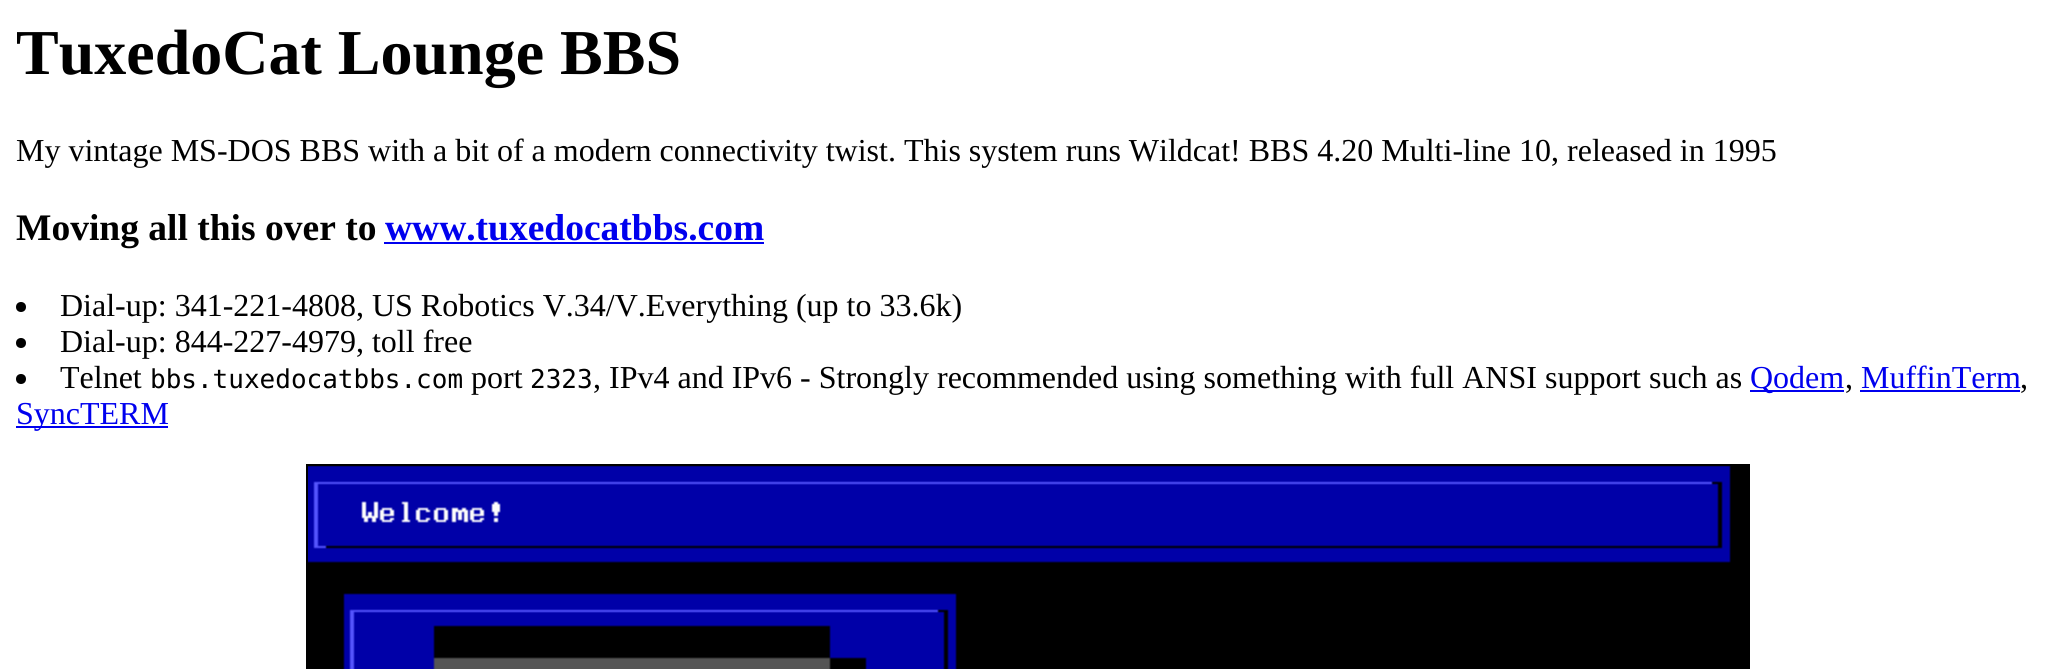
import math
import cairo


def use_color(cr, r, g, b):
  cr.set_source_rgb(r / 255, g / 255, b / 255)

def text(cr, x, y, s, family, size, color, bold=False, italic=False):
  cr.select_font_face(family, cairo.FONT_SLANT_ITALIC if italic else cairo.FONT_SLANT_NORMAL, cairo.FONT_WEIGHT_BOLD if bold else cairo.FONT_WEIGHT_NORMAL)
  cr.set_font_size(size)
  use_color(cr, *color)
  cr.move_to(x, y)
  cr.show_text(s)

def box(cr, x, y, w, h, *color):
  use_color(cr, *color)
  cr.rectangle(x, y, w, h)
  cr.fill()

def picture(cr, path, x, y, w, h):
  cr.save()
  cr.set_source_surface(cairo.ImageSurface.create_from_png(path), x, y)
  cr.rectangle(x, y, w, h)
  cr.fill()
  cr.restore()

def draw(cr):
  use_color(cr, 255, 255, 255)
  cr.paint()
  box(cr, 384, 242, 380, 2, 0, 0, 238)
  use_color(cr, 0, 0, 0)
  cr.arc(21, 307, 5, 0, 2 * math.pi)
  cr.fill()
  cr.arc(21, 343, 5, 0, 2 * math.pi)
  cr.fill()
  cr.arc(21, 379, 5, 0, 2 * math.pi)
  cr.fill()
  box(cr, 1750, 390, 94, 2, 0, 0, 238)
  box(cr, 1860, 390, 160, 2, 0, 0, 238)
  box(cr, 16, 426, 152, 2, 0, 0, 238)
  cr.rectangle(307, 465, 1442, 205)
  use_color(cr, 0, 0, 0)
  cr.stroke()
  picture(cr, "img_01.png", 308, 466, 1440, 203)
  text(cr, 16, 74, "TuxedoCat Lounge BBS", "Liberation Serif", 64, (0, 0, 0), bold=True)
  text(cr, 16, 161, "My vintage MS-DOS BBS with a bit of a modern connectivity twist. This system runs Wildcat! BBS 4.20 Multi-line 10, released in 1995", "Liberation Serif", 32, (0, 0, 0))
  text(cr, 16, 240, "Moving all this over to", "Liberation Serif", 37.5, (0, 0, 0), bold=True)
  text(cr, 385, 240, "www.tuxedocatbbs.com", "Liberation Serif", 37.5, (0, 0, 238), bold=True)
  text(cr, 60, 316, "Dial-up: 341-221-4808, US Robotics V.34/V.Everything (up to 33.6k)", "Liberation Serif", 32, (0, 0, 0))
  text(cr, 60, 352, "Dial-up: 844-227-4979, toll free", "Liberation Serif", 32, (0, 0, 0))
  text(cr, 60, 388, "Telnet", "Liberation Serif", 32, (0, 0, 0))
  text(cr, 150, 388, "bbs.tuxedocatbbs.com", "DejaVu Sans Mono", 26, (0, 0, 0))
  text(cr, 471, 388, "port", "Liberation Serif", 32, (0, 0, 0))
  text(cr, 530, 388, "2323", "DejaVu Sans Mono", 26, (0, 0, 0))
  text(cr, 593, 388, ", IPv4 and IPv6 - Strongly recommended using something with full ANSI support such as", "Liberation Serif", 32, (0, 0, 0))
  text(cr, 1750, 388, "Qodem", "Liberation Serif", 32, (0, 0, 238))
  text(cr, 1861, 388, "MuffinTerm", "Liberation Serif", 32, (0, 0, 238))
  text(cr, 1845, 388, ",", "Liberation Serif", 32, (0, 0, 0))
  text(cr, 2020, 388, ",", "Liberation Serif", 32, (0, 0, 0))
  text(cr, 16, 424, "SyncTERM", "Liberation Serif", 32, (0, 0, 238))


surface = cairo.ImageSurface(cairo.FORMAT_RGB24, 2053, 669)
cr = cairo.Context(surface)
options = cairo.FontOptions()
options.set_hint_metrics(cairo.HINT_METRICS_OFF)
options.set_hint_style(cairo.HINT_STYLE_NONE)
cr.set_font_options(options)
cr.set_miter_limit(4)
draw(cr)
surface.write_to_png("out.png")
